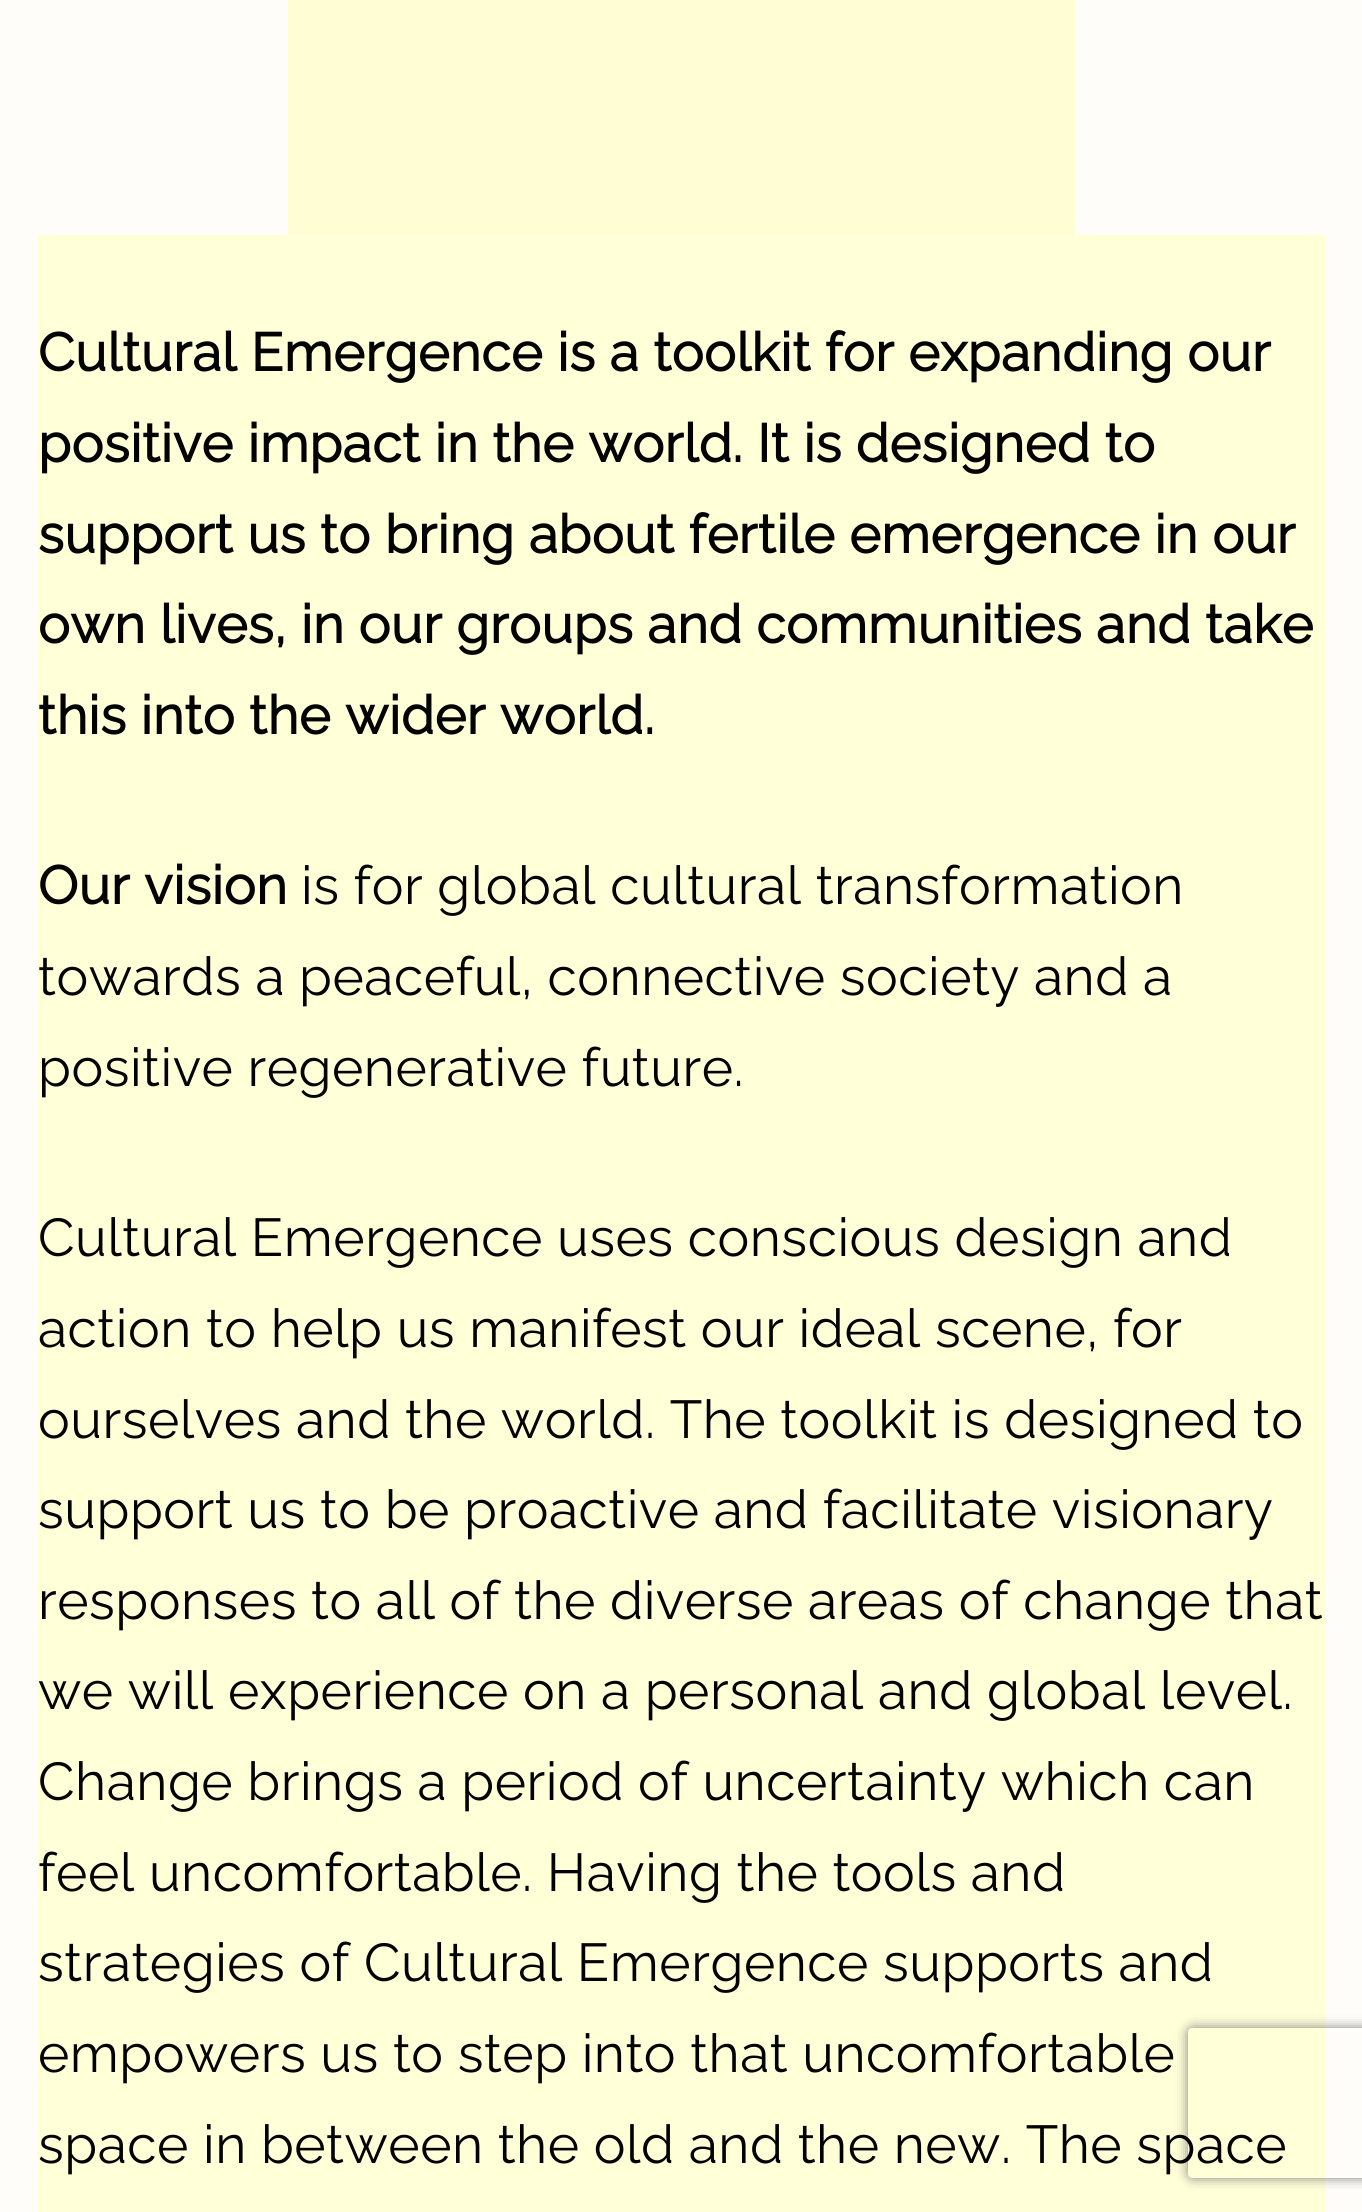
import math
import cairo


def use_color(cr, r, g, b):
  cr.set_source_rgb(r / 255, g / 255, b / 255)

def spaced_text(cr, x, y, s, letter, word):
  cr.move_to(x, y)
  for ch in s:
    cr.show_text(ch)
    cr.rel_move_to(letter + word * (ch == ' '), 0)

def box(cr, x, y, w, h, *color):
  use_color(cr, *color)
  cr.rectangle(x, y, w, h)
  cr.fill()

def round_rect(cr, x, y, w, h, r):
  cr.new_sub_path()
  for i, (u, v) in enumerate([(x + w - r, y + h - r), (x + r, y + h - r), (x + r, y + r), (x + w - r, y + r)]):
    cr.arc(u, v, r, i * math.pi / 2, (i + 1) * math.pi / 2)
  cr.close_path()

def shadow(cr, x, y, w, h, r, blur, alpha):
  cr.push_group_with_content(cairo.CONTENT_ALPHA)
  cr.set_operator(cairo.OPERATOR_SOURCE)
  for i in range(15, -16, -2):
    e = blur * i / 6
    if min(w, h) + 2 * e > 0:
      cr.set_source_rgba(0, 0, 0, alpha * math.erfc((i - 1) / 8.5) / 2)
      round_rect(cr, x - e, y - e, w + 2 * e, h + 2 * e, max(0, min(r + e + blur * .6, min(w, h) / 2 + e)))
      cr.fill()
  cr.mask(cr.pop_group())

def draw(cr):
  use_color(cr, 255, 253, 249)
  cr.paint()
  box(cr, 288, 0, 787, 235, 255, 253, 212)
  box(cr, 38, 235, 1287, 1977, 255, 255, 216)
  cr.save()
  cr.set_fill_rule(cairo.FILL_RULE_EVEN_ODD)
  cr.new_path()
  cr.move_to(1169, 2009)
  cr.line_to(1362, 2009)
  cr.line_to(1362, 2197)
  cr.line_to(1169, 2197)
  cr.close_path()
  cr.move_to(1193, 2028)
  cr.line_to(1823, 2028)
  cr.curve_to(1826, 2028, 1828, 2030, 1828, 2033)
  cr.line_to(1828, 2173)
  cr.curve_to(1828, 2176, 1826, 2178, 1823, 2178)
  cr.line_to(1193, 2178)
  cr.curve_to(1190, 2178, 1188, 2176, 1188, 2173)
  cr.line_to(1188, 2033)
  cr.curve_to(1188, 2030, 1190, 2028, 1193, 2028)
  cr.close_path()
  cr.clip()
  use_color(cr, 128, 128, 128)
  shadow(cr, 1188, 2028, 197, 150, 5, 6, 1)
  cr.restore()
  cr.select_font_face("Raleway", cairo.FONT_SLANT_NORMAL, cairo.FONT_WEIGHT_BOLD)
  cr.set_font_size(53.3)
  use_color(cr, 2, 2, 2)
  spaced_text(cr, 38, 371, "Cultural Emergence is a toolkit for expanding our", 0.53, 0)
  spaced_text(cr, 38, 462, "positive impact in the world. It is designed to", 0.53, 0)
  spaced_text(cr, 38, 553, "support us to bring about fertile emergence in our", 0.53, 0)
  spaced_text(cr, 38, 643, "own lives, in our groups and communities and take", 0.53, 0)
  spaced_text(cr, 38, 734, "this into the wider world.", 0.53, 0)
  spaced_text(cr, 38, 904, "Our vision", 0.53, 0)
  cr.select_font_face("Raleway")
  spaced_text(cr, 301, 904, "is for global cultural transformation", 0.53, 0)
  spaced_text(cr, 38, 995, "towards a peaceful, connective society and a", 0.53, 0)
  spaced_text(cr, 38, 1086, "positive regenerative future.", 0.53, 0)
  spaced_text(cr, 38, 1256, "Cultural Emergence uses conscious design and", 0.53, 0)
  spaced_text(cr, 38, 1347, "action to help us manifest our ideal scene, for", 0.53, 0)
  spaced_text(cr, 38, 1438, "ourselves and the world. The toolkit is designed to", 0.53, 0)
  spaced_text(cr, 38, 1528, "support us to be proactive and facilitate visionary", 0.53, 0)
  spaced_text(cr, 38, 1619, "responses to all of the diverse areas of change that", 0.53, 0)
  spaced_text(cr, 38, 1709, "we will experience on a personal and global level.", 0.53, 0)
  spaced_text(cr, 38, 1800, "Change brings a period of uncertainty which can", 0.53, 0)
  spaced_text(cr, 38, 1891, "feel uncomfortable. Having the tools and", 0.53, 0)
  spaced_text(cr, 38, 1981, "strategies of Cultural Emergence supports and", 0.53, 0)
  spaced_text(cr, 38, 2072, "empowers us to step into that uncomfortable", 0.53, 0)
  spaced_text(cr, 38, 2163, "space in between the old and the new. The space", 0.53, 0)


surface = cairo.ImageSurface(cairo.FORMAT_RGB24, 1362, 2212)
cr = cairo.Context(surface)
options = cairo.FontOptions()
options.set_hint_metrics(cairo.HINT_METRICS_OFF)
options.set_hint_style(cairo.HINT_STYLE_NONE)
cr.set_font_options(options)
cr.set_miter_limit(4)
draw(cr)
surface.write_to_png("out.png")
